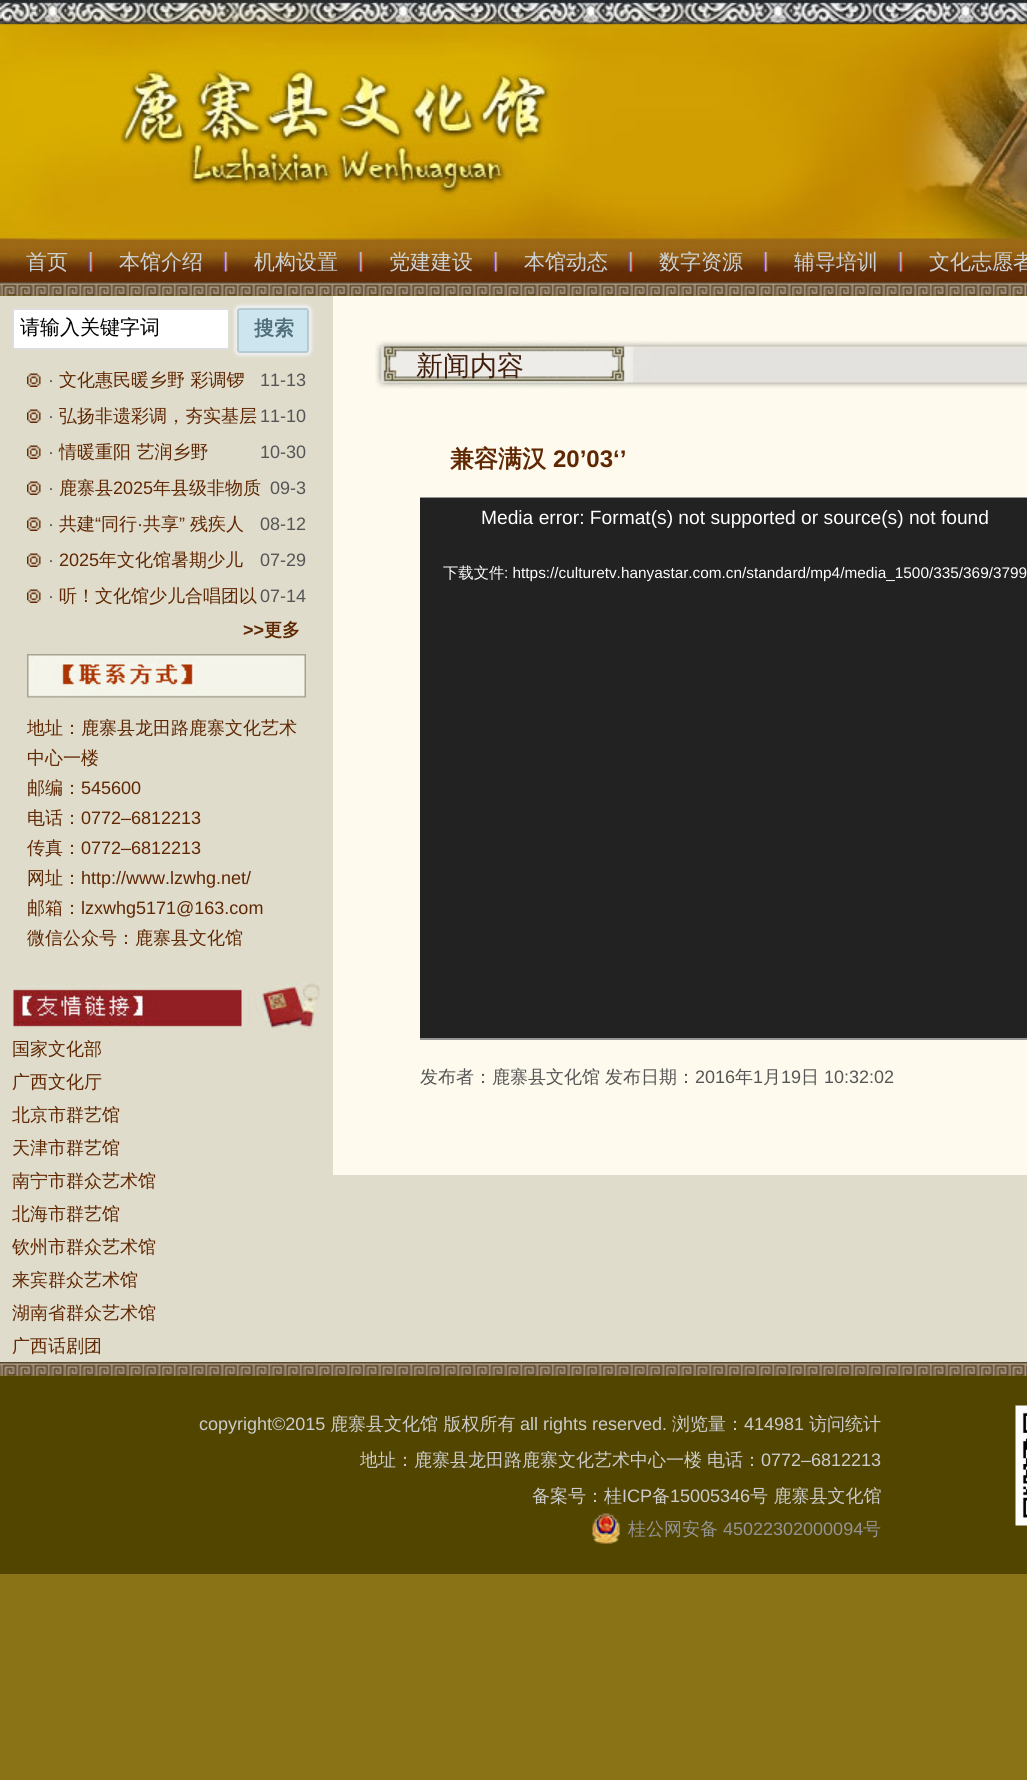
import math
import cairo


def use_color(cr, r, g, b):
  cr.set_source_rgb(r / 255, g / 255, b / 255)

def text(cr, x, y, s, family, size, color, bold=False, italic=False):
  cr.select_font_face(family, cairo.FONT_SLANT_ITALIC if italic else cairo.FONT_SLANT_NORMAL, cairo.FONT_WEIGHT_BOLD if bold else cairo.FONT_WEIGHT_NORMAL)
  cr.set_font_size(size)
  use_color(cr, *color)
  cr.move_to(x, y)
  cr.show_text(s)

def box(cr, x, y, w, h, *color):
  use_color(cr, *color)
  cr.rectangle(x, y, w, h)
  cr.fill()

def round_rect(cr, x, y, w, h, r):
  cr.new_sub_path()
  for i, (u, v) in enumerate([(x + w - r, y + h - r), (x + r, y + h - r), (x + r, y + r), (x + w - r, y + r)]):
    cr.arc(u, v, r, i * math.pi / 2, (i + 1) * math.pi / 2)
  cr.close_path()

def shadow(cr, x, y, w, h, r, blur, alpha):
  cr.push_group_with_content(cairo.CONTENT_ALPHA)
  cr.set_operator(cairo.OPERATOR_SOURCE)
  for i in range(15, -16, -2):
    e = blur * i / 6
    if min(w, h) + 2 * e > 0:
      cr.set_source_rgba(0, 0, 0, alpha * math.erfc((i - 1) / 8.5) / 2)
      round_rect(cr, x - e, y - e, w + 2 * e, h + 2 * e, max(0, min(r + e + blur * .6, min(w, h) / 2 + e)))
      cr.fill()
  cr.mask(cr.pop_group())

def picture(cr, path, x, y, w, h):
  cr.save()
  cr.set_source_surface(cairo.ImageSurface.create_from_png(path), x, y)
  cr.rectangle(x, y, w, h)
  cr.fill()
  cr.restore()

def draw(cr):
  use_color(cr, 138, 115, 22)
  cr.paint()
  picture(cr, "img_01.png", 0, 0, 1027, 240)
  picture(cr, "img_02.png", 0, 240, 1027, 42)
  picture(cr, "img_03.png", 88, 252, 5, 20)
  picture(cr, "img_04.png", 223, 252, 5, 20)
  picture(cr, "img_05.png", 358, 252, 5, 20)
  picture(cr, "img_06.png", 493, 252, 5, 20)
  picture(cr, "img_05.png", 628, 252, 5, 20)
  picture(cr, "img_04.png", 763, 252, 5, 20)
  picture(cr, "img_03.png", 898, 252, 5, 20)
  picture(cr, "img_07.png", 0, 282, 1027, 14)
  box(cr, 0, 296, 1027, 1066, 223, 220, 203)
  use_color(cr, 255, 255, 255)
  round_rect(cr, 13, 309, 216, 40, 2)
  cr.fill_preserve()
  use_color(cr, 221, 221, 221)
  cr.stroke()
  use_color(cr, 238, 238, 238)
  shadow(cr, 234, 305, 78, 51, 6, 1.5, 1)
  use_color(cr, 205, 229, 238)
  round_rect(cr, 238, 309, 70, 43, 2)
  cr.fill_preserve()
  use_color(cr, 182, 203, 209)
  cr.stroke()
  picture(cr, "img_08.png", 27, 373, 14, 14)
  picture(cr, "img_08.png", 27, 409, 14, 14)
  picture(cr, "img_08.png", 27, 445, 14, 14)
  picture(cr, "img_08.png", 27, 481, 14, 14)
  picture(cr, "img_08.png", 27, 517, 14, 14)
  picture(cr, "img_08.png", 27, 553, 14, 14)
  picture(cr, "img_08.png", 27, 589, 14, 14)
  picture(cr, "img_09.png", 27, 654, 279, 44)
  picture(cr, "img_10.png", 13, 982, 307, 50)
  box(cr, 333, 296, 694, 879, 254, 250, 238)
  picture(cr, "img_11.png", 375, 340, 652, 49)
  box(cr, 420, 497, 607, 1, 149, 149, 149)
  box(cr, 420, 1038, 607, 2, 149, 149, 149)
  box(cr, 420, 498, 607, 540, 34, 34, 34)
  picture(cr, "img_07.png", 0, 1362, 1027, 14)
  box(cr, 0, 1376, 1027, 198, 82, 69, 0)
  picture(cr, "img_12.png", 592, 1513, 28, 31)
  picture(cr, "img_13.png", 1015, 1405, 12, 121)
  text(cr, 26, 269, "首页", "WenQuanYi Zen Hei Medium", 21, (205, 210, 213))
  text(cr, 119, 269, "本馆介绍", "WenQuanYi Zen Hei Medium", 21, (205, 210, 213))
  text(cr, 254, 269, "机构设置", "WenQuanYi Zen Hei Medium", 21, (205, 210, 213))
  text(cr, 389, 269, "党建建设", "WenQuanYi Zen Hei Medium", 21, (205, 210, 213))
  text(cr, 524, 269, "本馆动态", "WenQuanYi Zen Hei Medium", 21, (205, 210, 213))
  text(cr, 659, 269, "数字资源", "WenQuanYi Zen Hei Medium", 21, (205, 210, 213))
  text(cr, 794, 269, "辅导培训", "WenQuanYi Zen Hei Medium", 21, (205, 210, 213))
  text(cr, 929, 269, "文化志愿者", "WenQuanYi Zen Hei Medium", 21, (205, 210, 213))
  text(cr, 20, 334, "请输入关键字词", "WenQuanYi Zen Hei Medium", 20, (0, 0, 0))
  text(cr, 254, 335, "搜索", "WenQuanYi Zen Hei", 20, (80, 110, 122), bold=True)
  text(cr, 48, 386, "·", "Liberation Sans", 18, (85, 85, 85))
  text(cr, 59, 386, "文化惠民暖乡野 彩调锣", "WenQuanYi Zen Hei Medium", 18, (95, 39, 2))
  text(cr, 260, 386, "11-13", "Liberation Sans", 18, (85, 85, 85))
  text(cr, 48, 422, "·", "Liberation Sans", 18, (85, 85, 85))
  text(cr, 59, 422, "弘扬非遗彩调，夯实基层", "WenQuanYi Zen Hei Medium", 18, (95, 39, 2))
  text(cr, 260, 422, "11-10", "Liberation Sans", 18, (85, 85, 85))
  text(cr, 48, 458, "·", "Liberation Sans", 18, (85, 85, 85))
  text(cr, 59, 458, "情暖重阳 艺润乡野", "WenQuanYi Zen Hei Medium", 18, (95, 39, 2))
  text(cr, 260, 458, "10-30", "Liberation Sans", 18, (85, 85, 85))
  text(cr, 48, 494, "·", "Liberation Sans", 18, (85, 85, 85))
  text(cr, 59, 494, "鹿寨县", "WenQuanYi Zen Hei Medium", 18, (95, 39, 2))
  text(cr, 113, 494, "2025", "Liberation Sans", 18, (95, 39, 2))
  text(cr, 153, 494, "年县级非物质", "WenQuanYi Zen Hei Medium", 18, (95, 39, 2))
  text(cr, 270, 494, "09-3", "Liberation Sans", 18, (85, 85, 85))
  text(cr, 48, 530, "·", "Liberation Sans", 18, (85, 85, 85))
  text(cr, 59, 530, "共建", "WenQuanYi Zen Hei Medium", 18, (95, 39, 2))
  text(cr, 95, 530, "“", "Liberation Sans", 18, (95, 39, 2))
  text(cr, 101, 530, "同行", "WenQuanYi Zen Hei Medium", 18, (95, 39, 2))
  text(cr, 137, 530, "·", "Liberation Sans", 18, (95, 39, 2))
  text(cr, 143, 530, "共享", "WenQuanYi Zen Hei Medium", 18, (95, 39, 2))
  text(cr, 179, 530, "”", "Liberation Sans", 18, (95, 39, 2))
  text(cr, 190, 530, "残疾人", "WenQuanYi Zen Hei Medium", 18, (95, 39, 2))
  text(cr, 260, 530, "08-12", "Liberation Sans", 18, (85, 85, 85))
  text(cr, 48, 566, "·", "Liberation Sans", 18, (85, 85, 85))
  text(cr, 59, 566, "2025", "Liberation Sans", 18, (95, 39, 2))
  text(cr, 99, 566, "年文化馆暑期少儿", "WenQuanYi Zen Hei Medium", 18, (95, 39, 2))
  text(cr, 260, 566, "07-29", "Liberation Sans", 18, (85, 85, 85))
  text(cr, 48, 602, "·", "Liberation Sans", 18, (85, 85, 85))
  text(cr, 59, 602, "听！文化馆少儿合唱团以", "WenQuanYi Zen Hei Medium", 18, (95, 39, 2))
  text(cr, 260, 602, "07-14", "Liberation Sans", 18, (85, 85, 85))
  text(cr, 243, 636, ">>", "Liberation Sans", 18, (95, 39, 2), bold=True)
  text(cr, 264, 636, "更多", "WenQuanYi Zen Hei", 18, (95, 39, 2), bold=True)
  text(cr, 27, 734, "地址：鹿寨县龙田路鹿寨文化艺术", "WenQuanYi Zen Hei Medium", 18, (95, 39, 2))
  text(cr, 27, 764, "中心一楼", "WenQuanYi Zen Hei Medium", 18, (95, 39, 2))
  text(cr, 27, 794, "邮编：", "WenQuanYi Zen Hei Medium", 18, (95, 39, 2))
  text(cr, 81, 794, "545600", "Liberation Sans", 18, (95, 39, 2))
  text(cr, 27, 824, "电话：", "WenQuanYi Zen Hei Medium", 18, (95, 39, 2))
  text(cr, 81, 824, "0772–6812213", "Liberation Sans", 18, (95, 39, 2))
  text(cr, 27, 854, "传真：", "WenQuanYi Zen Hei Medium", 18, (95, 39, 2))
  text(cr, 81, 854, "0772–6812213", "Liberation Sans", 18, (95, 39, 2))
  text(cr, 27, 884, "网址：", "WenQuanYi Zen Hei Medium", 18, (95, 39, 2))
  text(cr, 81, 884, "http://www.lzwhg.net/", "Liberation Sans", 18, (95, 39, 2))
  text(cr, 27, 914, "邮箱：", "WenQuanYi Zen Hei Medium", 18, (95, 39, 2))
  text(cr, 81, 914, "lzxwhg5171@163.com", "Liberation Sans", 18, (95, 39, 2))
  text(cr, 27, 944, "微信公众号：鹿寨县文化馆", "WenQuanYi Zen Hei Medium", 18, (95, 39, 2))
  text(cr, 12, 1055, "国家文化部", "WenQuanYi Zen Hei Medium", 18, (95, 39, 2))
  text(cr, 12, 1088, "广西文化厅", "WenQuanYi Zen Hei Medium", 18, (95, 39, 2))
  text(cr, 12, 1121, "北京市群艺馆", "WenQuanYi Zen Hei Medium", 18, (95, 39, 2))
  text(cr, 12, 1154, "天津市群艺馆", "WenQuanYi Zen Hei Medium", 18, (95, 39, 2))
  text(cr, 12, 1187, "南宁市群众艺术馆", "WenQuanYi Zen Hei Medium", 18, (95, 39, 2))
  text(cr, 12, 1220, "北海市群艺馆", "WenQuanYi Zen Hei Medium", 18, (95, 39, 2))
  text(cr, 12, 1253, "钦州市群众艺术馆", "WenQuanYi Zen Hei Medium", 18, (95, 39, 2))
  text(cr, 12, 1286, "来宾群众艺术馆", "WenQuanYi Zen Hei Medium", 18, (95, 39, 2))
  text(cr, 12, 1319, "湖南省群众艺术馆", "WenQuanYi Zen Hei Medium", 18, (95, 39, 2))
  text(cr, 12, 1352, "广西话剧团", "WenQuanYi Zen Hei Medium", 18, (95, 39, 2))
  text(cr, 416, 375, "新闻内容", "WenQuanYi Zen Hei Medium", 27, (65, 30, 11))
  text(cr, 450, 467, "兼容满汉", "WenQuanYi Zen Hei", 24, (95, 39, 2), bold=True)
  text(cr, 553, 467, "20’03‘’", "Liberation Sans", 24, (95, 39, 2), bold=True)
  text(cr, 481, 524, "Media error: Format(s) not supported or source(s) not found", "Liberation Sans", 19.2, (255, 255, 255))
  text(cr, 443, 578, "下载文件", "WenQuanYi Zen Hei Medium", 15.35, (255, 255, 255))
  text(cr, 504, 578, ": https://culturetv.hanyastar.com.cn/standard/mp4/media_1500/335/369/3799", "Liberation Sans", 15.35, (255, 255, 255))
  text(cr, 420, 1083, "发布者：鹿寨县文化馆", "WenQuanYi Zen Hei Medium", 18, (85, 85, 85))
  text(cr, 605, 1083, "发布日期：", "WenQuanYi Zen Hei Medium", 18, (85, 85, 85))
  text(cr, 695, 1083, "2016", "Liberation Sans", 18, (85, 85, 85))
  text(cr, 735, 1083, "年", "WenQuanYi Zen Hei Medium", 18, (85, 85, 85))
  text(cr, 753, 1083, "1", "Liberation Sans", 18, (85, 85, 85))
  text(cr, 763, 1083, "月", "WenQuanYi Zen Hei Medium", 18, (85, 85, 85))
  text(cr, 781, 1083, "19", "Liberation Sans", 18, (85, 85, 85))
  text(cr, 801, 1083, "日", "WenQuanYi Zen Hei Medium", 18, (85, 85, 85))
  text(cr, 824, 1083, "10:32:02", "Liberation Sans", 18, (85, 85, 85))
  text(cr, 199, 1430, "copyright©2015", "Liberation Sans", 18, (204, 204, 204))
  text(cr, 330, 1430, "鹿寨县文化馆 版权所有", "WenQuanYi Zen Hei Medium", 18, (204, 204, 204))
  text(cr, 520, 1430, "all rights reserved.", "Liberation Sans", 18, (204, 204, 204))
  text(cr, 672, 1430, "浏览量：", "WenQuanYi Zen Hei Medium", 18, (204, 204, 204))
  text(cr, 744, 1430, "414981", "Liberation Sans", 18, (204, 204, 204))
  text(cr, 809, 1430, "访问统计", "WenQuanYi Zen Hei Medium", 18, (204, 204, 204))
  text(cr, 360, 1466, "地址：鹿寨县龙田路鹿寨文化艺术中心一楼", "WenQuanYi Zen Hei Medium", 18, (204, 204, 204))
  text(cr, 707, 1466, "电话：", "WenQuanYi Zen Hei Medium", 18, (204, 204, 204))
  text(cr, 761, 1466, "0772–6812213", "Liberation Sans", 18, (204, 204, 204))
  text(cr, 532, 1502, "备案号：桂", "WenQuanYi Zen Hei Medium", 18, (204, 204, 204))
  text(cr, 622, 1502, "ICP", "Liberation Sans", 18, (204, 204, 204))
  text(cr, 652, 1502, "备", "WenQuanYi Zen Hei Medium", 18, (204, 204, 204))
  text(cr, 670, 1502, "15005346", "Liberation Sans", 18, (204, 204, 204))
  text(cr, 750, 1502, "号 鹿寨县文化馆", "WenQuanYi Zen Hei Medium", 18, (204, 204, 204))
  text(cr, 628, 1535, "桂公网安备", "WenQuanYi Zen Hei Medium", 18, (147, 147, 147))
  text(cr, 723, 1535, "45022302000094", "Liberation Sans", 18, (147, 147, 147))
  text(cr, 863, 1535, "号", "WenQuanYi Zen Hei Medium", 18, (147, 147, 147))


surface = cairo.ImageSurface(cairo.FORMAT_RGB24, 1027, 1780)
cr = cairo.Context(surface)
options = cairo.FontOptions()
options.set_hint_metrics(cairo.HINT_METRICS_OFF)
options.set_hint_style(cairo.HINT_STYLE_NONE)
cr.set_font_options(options)
cr.set_miter_limit(4)
draw(cr)
surface.write_to_png("out.png")
